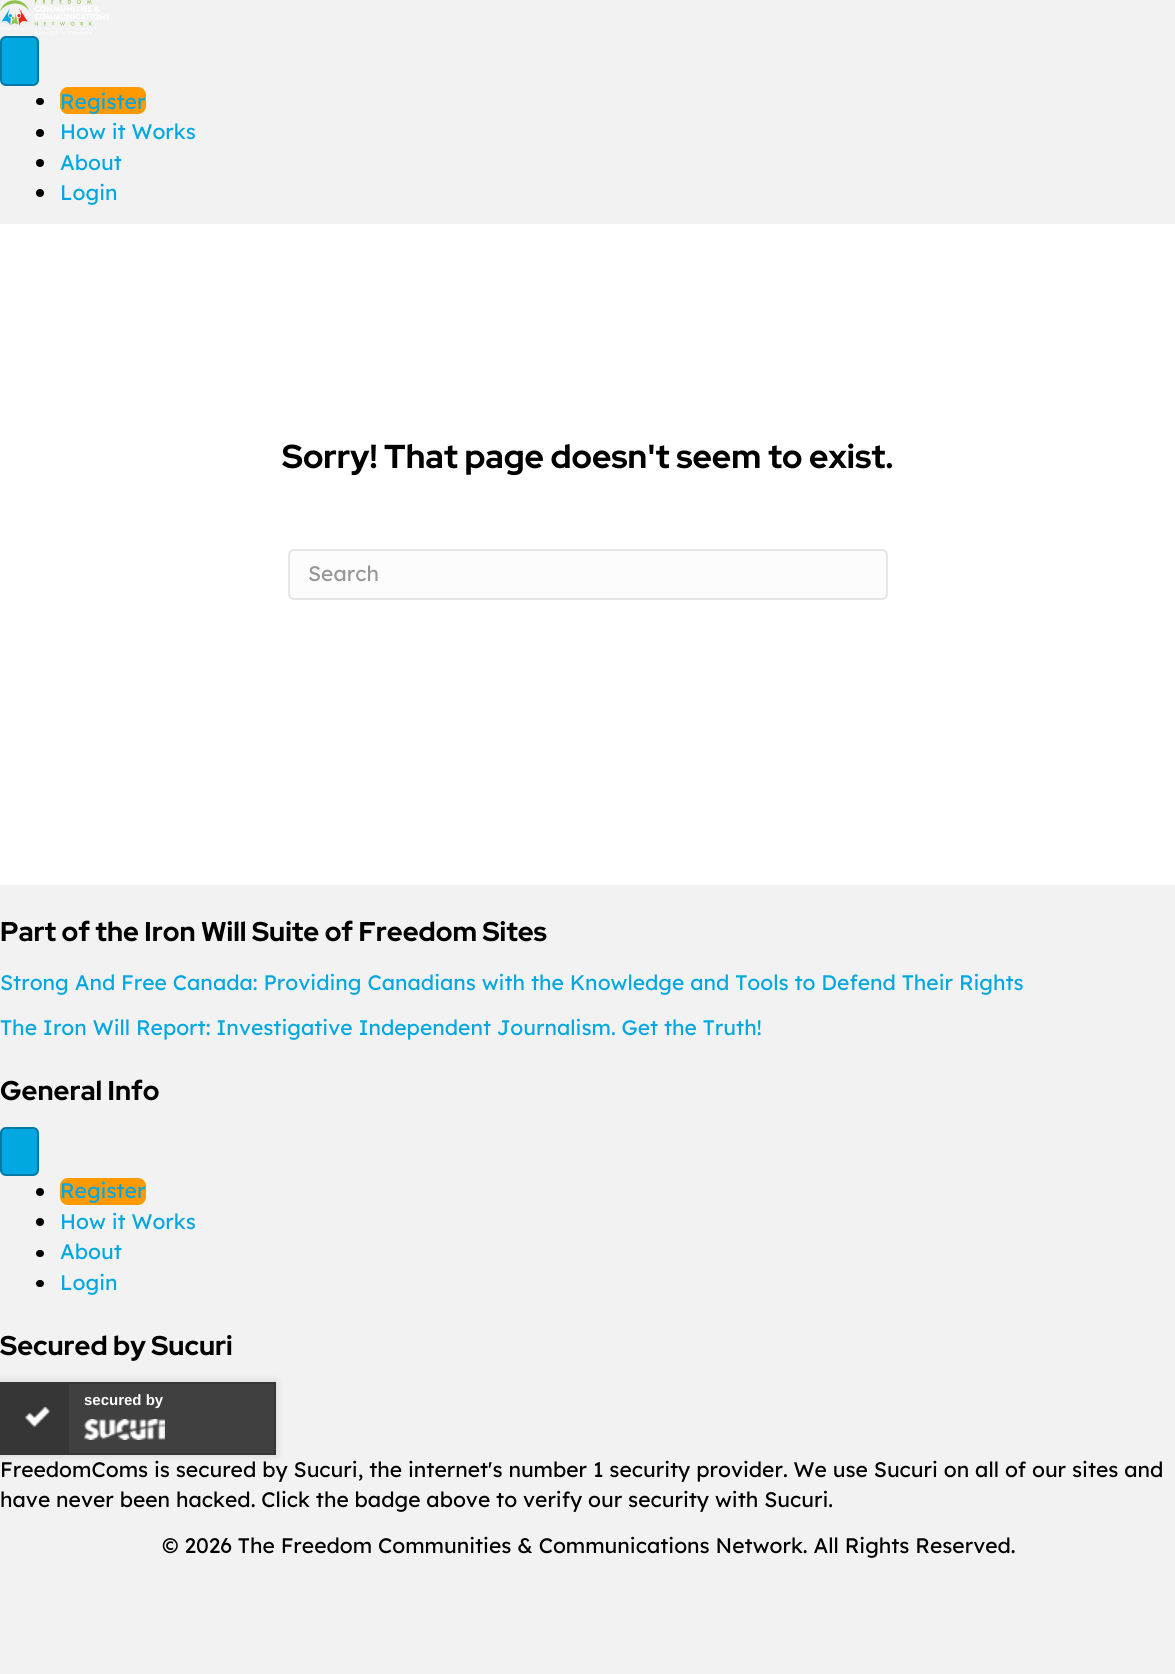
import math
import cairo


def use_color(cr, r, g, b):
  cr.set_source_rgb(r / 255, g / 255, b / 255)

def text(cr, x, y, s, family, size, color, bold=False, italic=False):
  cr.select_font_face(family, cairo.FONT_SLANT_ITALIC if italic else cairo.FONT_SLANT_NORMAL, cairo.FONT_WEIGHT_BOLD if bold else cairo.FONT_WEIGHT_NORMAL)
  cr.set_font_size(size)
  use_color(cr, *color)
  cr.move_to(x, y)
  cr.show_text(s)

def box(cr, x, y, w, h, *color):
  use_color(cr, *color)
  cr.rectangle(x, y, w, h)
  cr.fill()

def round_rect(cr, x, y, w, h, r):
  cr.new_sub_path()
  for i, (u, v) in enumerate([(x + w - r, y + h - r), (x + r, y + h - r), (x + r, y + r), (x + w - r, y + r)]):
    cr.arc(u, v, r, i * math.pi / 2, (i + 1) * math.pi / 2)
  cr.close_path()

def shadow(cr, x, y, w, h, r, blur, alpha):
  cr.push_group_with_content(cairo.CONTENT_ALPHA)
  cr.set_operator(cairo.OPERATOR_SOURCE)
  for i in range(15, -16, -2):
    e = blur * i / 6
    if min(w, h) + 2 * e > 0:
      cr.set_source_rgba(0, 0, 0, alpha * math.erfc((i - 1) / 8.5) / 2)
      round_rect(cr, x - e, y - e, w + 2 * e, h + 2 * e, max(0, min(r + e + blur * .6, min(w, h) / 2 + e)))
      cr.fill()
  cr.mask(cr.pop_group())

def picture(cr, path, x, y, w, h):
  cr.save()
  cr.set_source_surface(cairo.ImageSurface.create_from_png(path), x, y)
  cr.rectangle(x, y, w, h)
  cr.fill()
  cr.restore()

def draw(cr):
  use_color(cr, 242, 242, 242)
  cr.paint()
  box(cr, 0, 224, 1175, 661, 255, 255, 255)
  picture(cr, "img_01.png", 0, 0, 109, 36)
  use_color(cr, 0, 167, 225)
  round_rect(cr, 1, 37, 37, 48, 5)
  cr.fill_preserve()
  use_color(cr, 0, 122, 164)
  cr.stroke()
  use_color(cr, 0, 0, 0)
  round_rect(cr, 36, 98, 8, 7, 3.5)
  cr.fill()
  use_color(cr, 255, 153, 0)
  round_rect(cr, 60, 87, 86, 27, 8)
  cr.fill()
  use_color(cr, 0, 0, 0)
  cr.arc(40, 133, 4, 0, 2 * math.pi)
  cr.fill()
  cr.arc(40, 163, 4, 0, 2 * math.pi)
  cr.fill()
  cr.arc(40, 193, 4, 0, 2 * math.pi)
  cr.fill()
  use_color(cr, 252, 252, 252)
  round_rect(cr, 289, 550, 598, 49, 5)
  cr.fill_preserve()
  use_color(cr, 230, 230, 230)
  cr.stroke()
  use_color(cr, 0, 167, 225)
  round_rect(cr, 1, 1128, 37, 47, 5)
  cr.fill_preserve()
  use_color(cr, 0, 122, 164)
  cr.stroke()
  use_color(cr, 0, 0, 0)
  cr.arc(40, 1192, 4, 0, 2 * math.pi)
  cr.fill()
  use_color(cr, 255, 153, 0)
  round_rect(cr, 60, 1178, 86, 27, 8)
  cr.fill()
  use_color(cr, 0, 0, 0)
  cr.arc(40, 1222, 4, 0, 2 * math.pi)
  cr.fill()
  round_rect(cr, 36, 1250, 8, 7, 3.5)
  cr.fill()
  round_rect(cr, 36, 1280, 8, 7, 3.5)
  cr.fill()
  use_color(cr, 0, 0, 0)
  shadow(cr, 0, 1382, 276, 73, 0, 4.5, 0.14)
  box(cr, 69, 1384, 205, 69, 64, 64, 64)
  cr.rectangle(1, 1383, 274, 71)
  use_color(cr, 54, 54, 54)
  cr.stroke()
  box(cr, 2, 1384, 67, 69, 54, 54, 54)
  picture(cr, "img_02.png", 25, 1407, 25, 20)
  picture(cr, "img_03.png", 84, 1419, 81, 21)
  text(cr, 60, 109, "Register", "Lexend Deca", 21.03, (0, 167, 225))
  text(cr, 60, 139, "How it Works", "Lexend Deca", 21.03, (0, 167, 225))
  text(cr, 60, 170, "About", "Lexend Deca", 21.03, (0, 167, 225))
  text(cr, 60, 200, "Login", "Lexend Deca", 21.03, (0, 167, 225))
  text(cr, 282, 468, "Sorry! That page doesn't seem to exist.", "Red Hat Display ExtraBold", 33.1, (0, 0, 0))
  text(cr, 308, 581, "Search", "Lexend Deca", 21, (151, 151, 151))
  text(cr, 0, 941, "Part of the Iron Will Suite of Freedom Sites", "Red Hat Display ExtraBold", 27.1, (0, 0, 0))
  text(cr, 0, 990, "Strong And Free Canada: Providing Canadians with the Knowledge and Tools to Defend Their Rights", "Lexend Deca", 21.03, (0, 167, 225))
  text(cr, 0, 1035, "The Iron Will Report: Investigative Independent Journalism. Get the Truth!", "Lexend Deca", 21.03, (0, 167, 225))
  text(cr, 0, 1100, "General Info", "Red Hat Display ExtraBold", 27.1, (0, 0, 0))
  text(cr, 60, 1198, "Register", "Lexend Deca", 21.03, (0, 167, 225))
  text(cr, 60, 1229, "How it Works", "Lexend Deca", 21.03, (0, 167, 225))
  text(cr, 60, 1259, "About", "Lexend Deca", 21.03, (0, 167, 225))
  text(cr, 60, 1290, "Login", "Lexend Deca", 21.03, (0, 167, 225))
  text(cr, 0, 1355, "Secured by Sucuri", "Red Hat Display ExtraBold", 27.1, (0, 0, 0))
  text(cr, 84, 1405, "secured by", "Liberation Sans", 15, (254, 254, 253), bold=True)
  text(cr, 0, 1477, "FreedomComs is secured by Sucuri, the internet's number 1 security provider. We use Sucuri on all of our sites and", "Lexend Deca", 21.03, (0, 0, 0))
  text(cr, 0, 1507, "have never been hacked. Click the badge above to verify our security with Sucuri.", "Lexend Deca", 21.03, (0, 0, 0))
  text(cr, 162, 1553, "© 2026 The Freedom Communities & Communications Network. All Rights Reserved.", "Lexend Deca", 21.03, (0, 0, 0))


surface = cairo.ImageSurface(cairo.FORMAT_RGB24, 1175, 1674)
cr = cairo.Context(surface)
options = cairo.FontOptions()
options.set_hint_metrics(cairo.HINT_METRICS_OFF)
options.set_hint_style(cairo.HINT_STYLE_NONE)
cr.set_font_options(options)
cr.set_miter_limit(4)
draw(cr)
surface.write_to_png("out.png")
